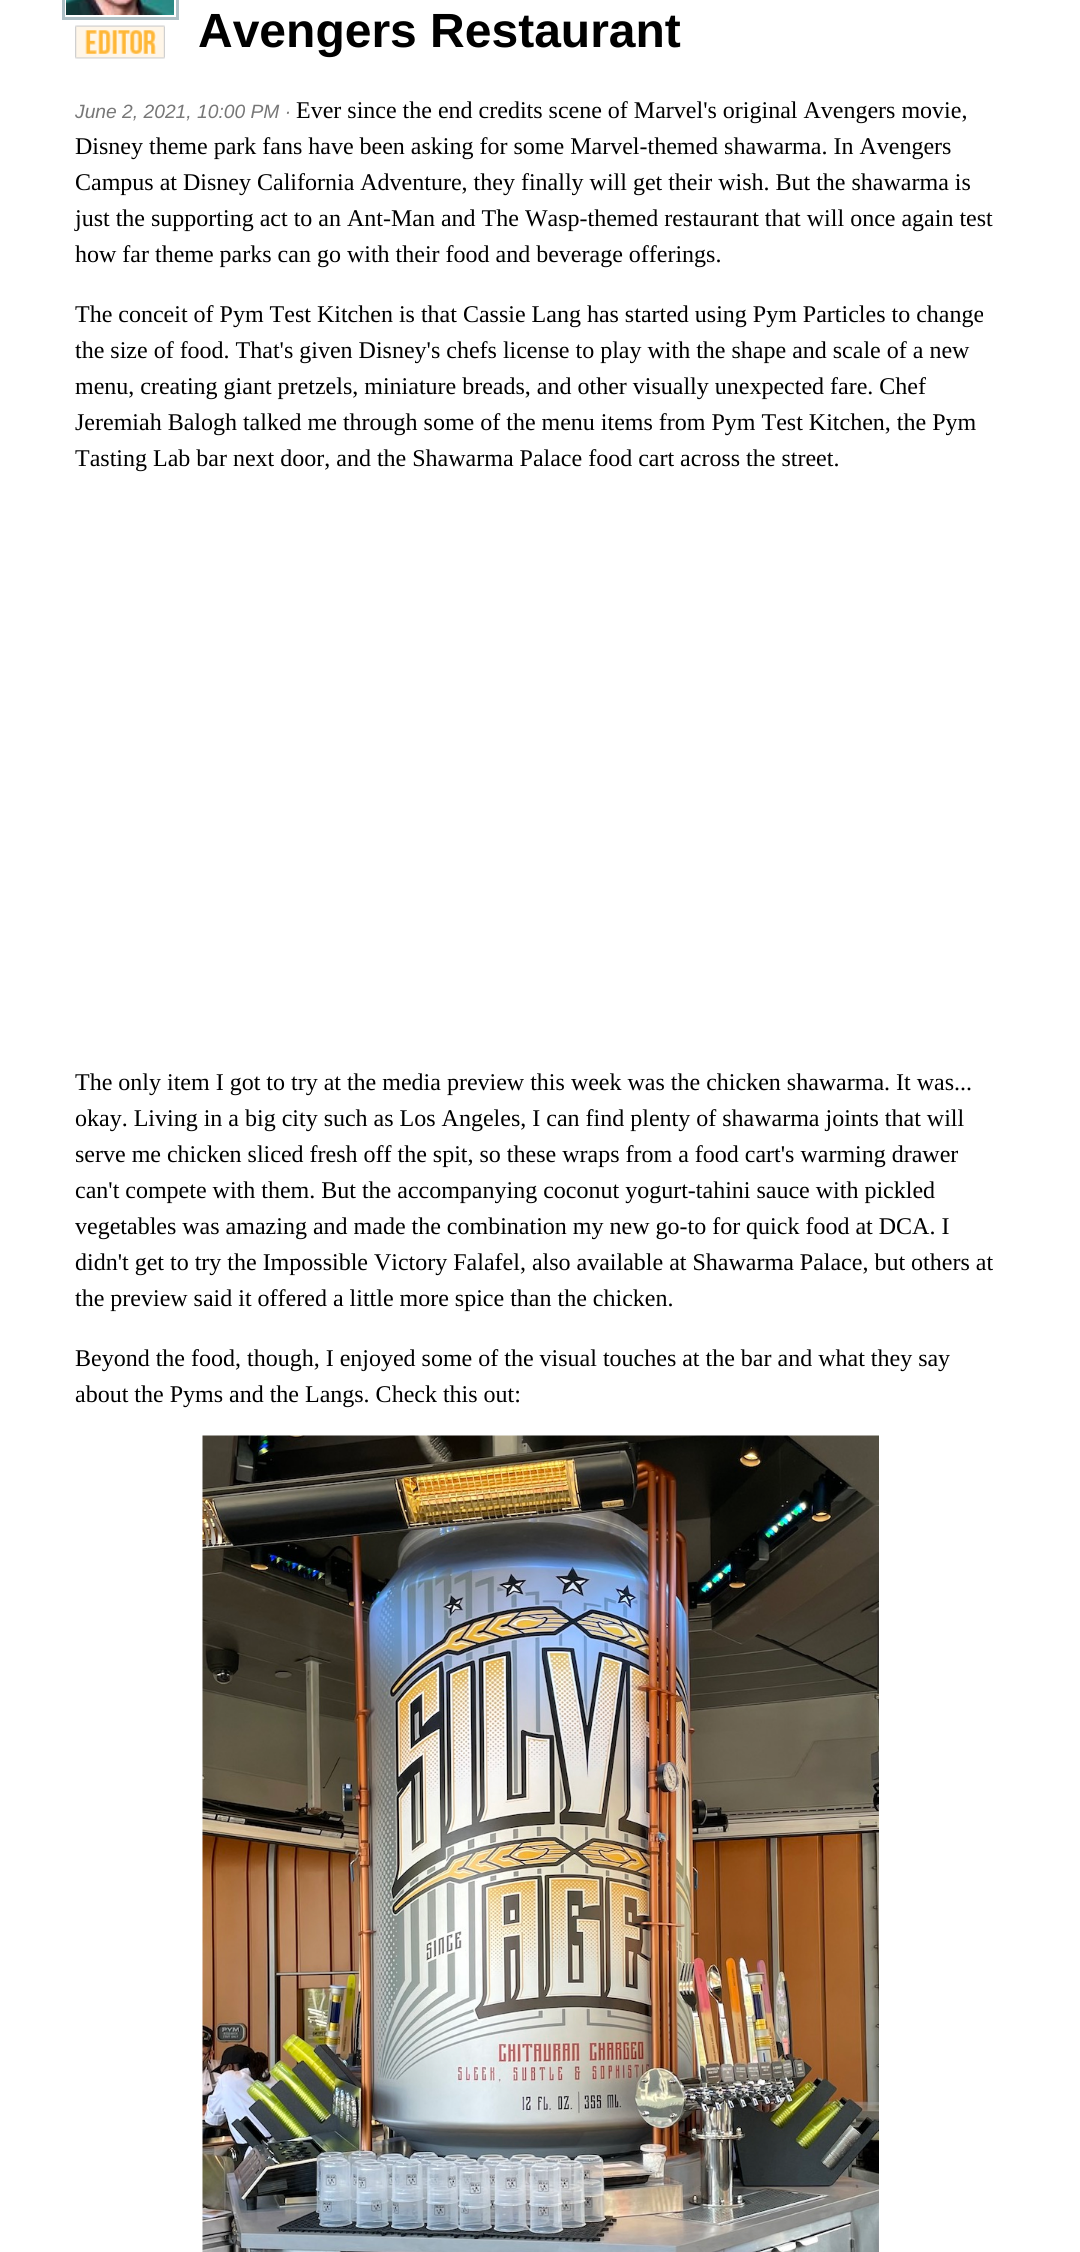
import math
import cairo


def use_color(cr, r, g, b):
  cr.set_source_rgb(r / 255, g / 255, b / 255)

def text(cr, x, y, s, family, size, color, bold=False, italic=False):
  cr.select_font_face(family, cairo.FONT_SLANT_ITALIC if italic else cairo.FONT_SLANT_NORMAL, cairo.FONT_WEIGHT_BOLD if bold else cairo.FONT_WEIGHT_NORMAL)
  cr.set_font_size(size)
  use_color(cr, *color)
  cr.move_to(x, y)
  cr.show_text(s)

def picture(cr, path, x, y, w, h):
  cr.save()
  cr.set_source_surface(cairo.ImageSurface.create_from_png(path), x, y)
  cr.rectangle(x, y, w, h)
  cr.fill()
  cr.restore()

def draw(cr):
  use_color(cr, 255, 255, 255)
  cr.paint()
  cr.rectangle(63.5, -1.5, 114, 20)
  use_color(cr, 175, 192, 198)
  cr.set_line_width(3)
  cr.stroke()
  picture(cr, "img_01.png", 66, 0, 108, 15)
  picture(cr, "img_02.png", 75, 25, 90, 34)
  picture(cr, "img_03.png", 202, 1435, 677, 817)
  text(cr, 198, 47, "Avengers Restaurant", "Liberation Sans", 48, (0, 0, 0), bold=True)
  text(cr, 75, 118, "June 2, 2021, 10:00 PM ·", "Liberation Sans", 19.25, (119, 119, 119), italic=True)
  text(cr, 296, 118, "Ever since the end credits scene of Marvel's original Avengers movie,", "Liberation Serif", 24, (0, 0, 0))
  text(cr, 75, 154, "Disney theme park fans have been asking for some Marvel-themed shawarma. In Avengers", "Liberation Serif", 24, (0, 0, 0))
  text(cr, 75, 190, "Campus at Disney California Adventure, they finally will get their wish. But the shawarma is", "Liberation Serif", 24, (0, 0, 0))
  text(cr, 75, 226, "just the supporting act to an Ant-Man and The Wasp-themed restaurant that will once again test", "Liberation Serif", 24, (0, 0, 0))
  text(cr, 75, 262, "how far theme parks can go with their food and beverage offerings.", "Liberation Serif", 24, (0, 0, 0))
  text(cr, 75, 322, "The conceit of Pym Test Kitchen is that Cassie Lang has started using Pym Particles to change", "Liberation Serif", 24, (0, 0, 0))
  text(cr, 75, 358, "the size of food. That's given Disney's chefs license to play with the shape and scale of a new", "Liberation Serif", 24, (0, 0, 0))
  text(cr, 75, 394, "menu, creating giant pretzels, miniature breads, and other visually unexpected fare. Chef", "Liberation Serif", 24, (0, 0, 0))
  text(cr, 75, 430, "Jeremiah Balogh talked me through some of the menu items from Pym Test Kitchen, the Pym", "Liberation Serif", 24, (0, 0, 0))
  text(cr, 75, 466, "Tasting Lab bar next door, and the Shawarma Palace food cart across the street.", "Liberation Serif", 24, (0, 0, 0))
  text(cr, 75, 1090, "The only item I got to try at the media preview this week was the chicken shawarma. It was...", "Liberation Serif", 24, (0, 0, 0))
  text(cr, 75, 1126, "okay. Living in a big city such as Los Angeles, I can find plenty of shawarma joints that will", "Liberation Serif", 24, (0, 0, 0))
  text(cr, 75, 1162, "serve me chicken sliced fresh off the spit, so these wraps from a food cart's warming drawer", "Liberation Serif", 24, (0, 0, 0))
  text(cr, 75, 1198, "can't compete with them. But the accompanying coconut yogurt-tahini sauce with pickled", "Liberation Serif", 24, (0, 0, 0))
  text(cr, 75, 1234, "vegetables was amazing and made the combination my new go-to for quick food at DCA. I", "Liberation Serif", 24, (0, 0, 0))
  text(cr, 75, 1270, "didn't get to try the Impossible Victory Falafel, also available at Shawarma Palace, but others at", "Liberation Serif", 24, (0, 0, 0))
  text(cr, 75, 1306, "the preview said it offered a little more spice than the chicken.", "Liberation Serif", 24, (0, 0, 0))
  text(cr, 75, 1366, "Beyond the food, though, I enjoyed some of the visual touches at the bar and what they say", "Liberation Serif", 24, (0, 0, 0))
  text(cr, 75, 1402, "about the Pyms and the Langs. Check this out:", "Liberation Serif", 24, (0, 0, 0))


surface = cairo.ImageSurface(cairo.FORMAT_RGB24, 1080, 2252)
cr = cairo.Context(surface)
options = cairo.FontOptions()
options.set_hint_metrics(cairo.HINT_METRICS_OFF)
options.set_hint_style(cairo.HINT_STYLE_NONE)
cr.set_font_options(options)
cr.set_miter_limit(4)
draw(cr)
surface.write_to_png("out.png")
